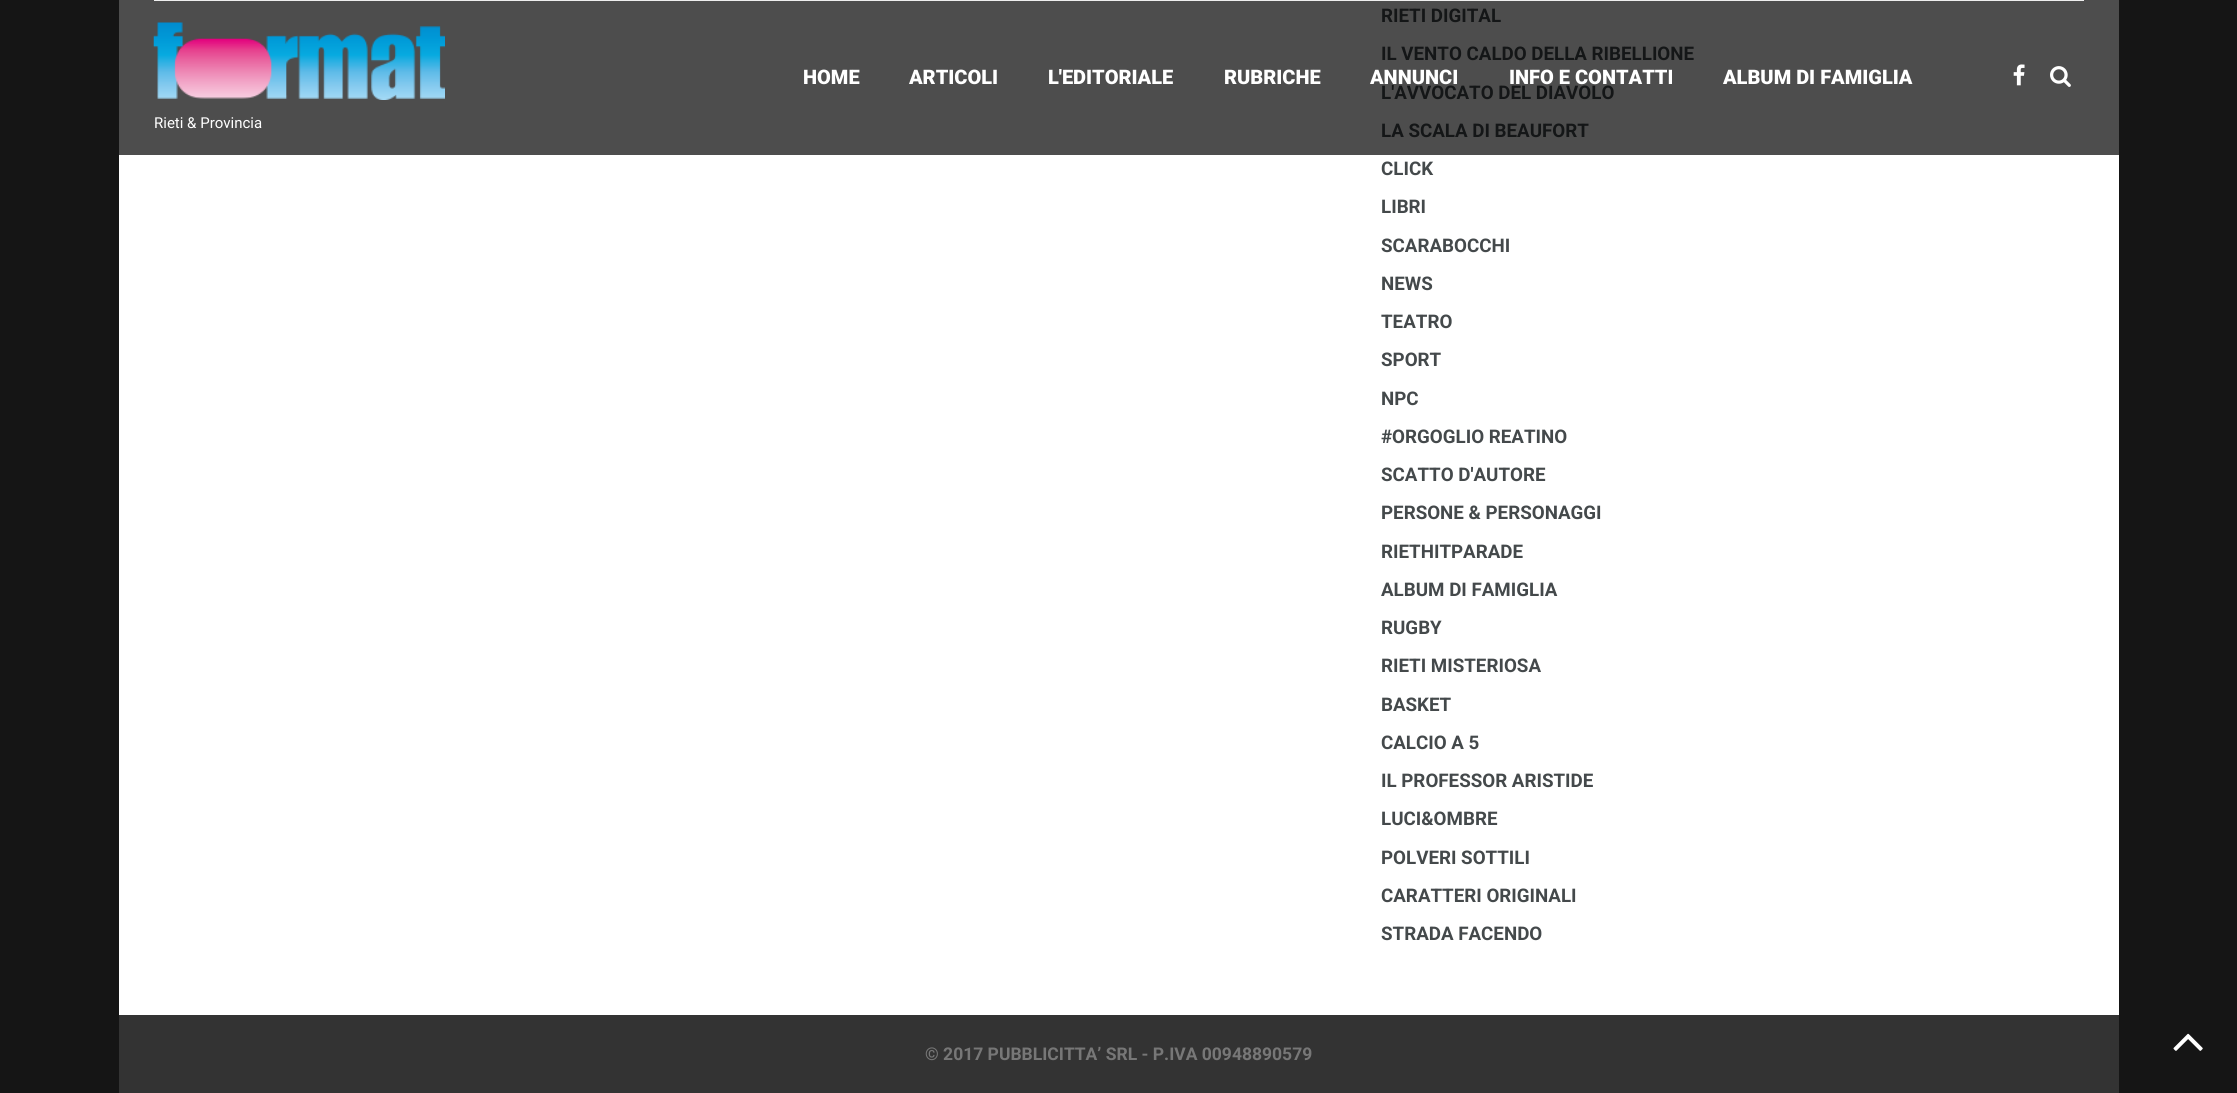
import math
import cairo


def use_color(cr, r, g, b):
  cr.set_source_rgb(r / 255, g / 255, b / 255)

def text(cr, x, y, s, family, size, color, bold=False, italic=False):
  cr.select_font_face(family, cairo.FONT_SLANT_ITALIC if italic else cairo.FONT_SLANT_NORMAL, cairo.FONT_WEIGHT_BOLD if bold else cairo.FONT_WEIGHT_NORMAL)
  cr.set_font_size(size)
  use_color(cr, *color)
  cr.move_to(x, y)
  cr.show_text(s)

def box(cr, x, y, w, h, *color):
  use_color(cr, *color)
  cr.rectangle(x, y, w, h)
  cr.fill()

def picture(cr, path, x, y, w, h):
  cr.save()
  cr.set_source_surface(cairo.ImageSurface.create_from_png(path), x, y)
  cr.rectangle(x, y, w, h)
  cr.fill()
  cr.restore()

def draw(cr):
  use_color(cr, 21, 21, 21)
  cr.paint()
  box(cr, 119, 155, 2000, 860, 255, 255, 255)
  box(cr, 119, 0, 2000, 155, 77, 77, 77)
  box(cr, 119, 1015, 2000, 78, 51, 51, 51)
  box(cr, 154, 0, 1930, 1, 238, 238, 238)
  picture(cr, "img_01.png", 153, 22, 292, 78)
  picture(cr, "img_02.png", 2013, 64, 12, 22)
  picture(cr, "img_03.png", 2050, 66, 21, 21)
  picture(cr, "img_04.png", 2173, 1033, 30, 18)
  text(cr, 1381, 22, "RIETI DIGITAL", "Roboto", 18.75, (20, 22, 23), bold=True)
  text(cr, 1381, 60, "IL VENTO CALDO DELLA RIBELLIONE", "Roboto", 18.75, (20, 22, 23), bold=True)
  text(cr, 1381, 99, "L'AVVOCATO DEL DIAVOLO", "Roboto", 18.75, (20, 22, 23), bold=True)
  text(cr, 1381, 137, "LA SCALA DI BEAUFORT", "Roboto", 18.75, (20, 22, 23), bold=True)
  text(cr, 1381, 175, "CLICK", "Roboto", 18.75, (68, 73, 75), bold=True)
  text(cr, 1381, 213, "LIBRI", "Roboto", 18.75, (68, 73, 75), bold=True)
  text(cr, 1381, 252, "SCARABOCCHI", "Roboto", 18.75, (68, 73, 75), bold=True)
  text(cr, 1381, 290, "NEWS", "Roboto", 18.75, (68, 73, 75), bold=True)
  text(cr, 1381, 328, "TEATRO", "Roboto", 18.75, (68, 73, 75), bold=True)
  text(cr, 1381, 366, "SPORT", "Roboto", 18.75, (68, 73, 75), bold=True)
  text(cr, 1381, 405, "NPC", "Roboto", 18.75, (68, 73, 75), bold=True)
  text(cr, 1381, 443, "#ORGOGLIO REATINO", "Roboto", 18.75, (68, 73, 75), bold=True)
  text(cr, 1381, 481, "SCATTO D'AUTORE", "Roboto", 18.75, (68, 73, 75), bold=True)
  text(cr, 1381, 519, "PERSONE & PERSONAGGI", "Roboto", 18.75, (68, 73, 75), bold=True)
  text(cr, 1381, 558, "RIETHITPARADE", "Roboto", 18.75, (68, 73, 75), bold=True)
  text(cr, 1381, 596, "ALBUM DI FAMIGLIA", "Roboto", 18.75, (68, 73, 75), bold=True)
  text(cr, 1381, 634, "RUGBY", "Roboto", 18.75, (68, 73, 75), bold=True)
  text(cr, 1381, 672, "RIETI MISTERIOSA", "Roboto", 18.75, (68, 73, 75), bold=True)
  text(cr, 1381, 711, "BASKET", "Roboto", 18.75, (68, 73, 75), bold=True)
  text(cr, 1381, 749, "CALCIO A 5", "Roboto", 18.75, (68, 73, 75), bold=True)
  text(cr, 1381, 787, "IL PROFESSOR ARISTIDE", "Roboto", 18.75, (68, 73, 75), bold=True)
  text(cr, 1381, 825, "LUCI&OMBRE", "Roboto", 18.75, (68, 73, 75), bold=True)
  text(cr, 1381, 864, "POLVERI SOTTILI", "Roboto", 18.75, (68, 73, 75), bold=True)
  text(cr, 1381, 902, "CARATTERI ORIGINALI", "Roboto", 18.75, (68, 73, 75), bold=True)
  text(cr, 1381, 940, "STRADA FACENDO", "Roboto", 18.75, (68, 73, 75), bold=True)
  text(cr, 925, 1060, "© 2017 PUBBLICITTA’ SRL - P.IVA 00948890579", "Roboto", 17.5, (119, 119, 119), bold=True)
  text(cr, 803, 84, "HOME", "Roboto Black", 20, (255, 255, 255))
  text(cr, 909, 84, "ARTICOLI", "Roboto Black", 20, (255, 255, 255))
  text(cr, 1048, 84, "L'EDITORIALE", "Roboto Black", 20, (255, 255, 255))
  text(cr, 1224, 84, "RUBRICHE", "Roboto Black", 20, (255, 255, 255))
  text(cr, 1370, 84, "ANNUNCI", "Roboto Black", 20, (255, 255, 255))
  text(cr, 1509, 84, "INFO E CONTATTI", "Roboto Black", 20, (255, 255, 255))
  text(cr, 1723, 84, "ALBUM DI FAMIGLIA", "Roboto Black", 20, (255, 255, 255))
  text(cr, 154, 128, "Rieti & Provincia", "Roboto", 15, (255, 255, 255))


surface = cairo.ImageSurface(cairo.FORMAT_RGB24, 2237, 1093)
cr = cairo.Context(surface)
options = cairo.FontOptions()
options.set_hint_metrics(cairo.HINT_METRICS_OFF)
options.set_hint_style(cairo.HINT_STYLE_NONE)
cr.set_font_options(options)
cr.set_miter_limit(4)
draw(cr)
surface.write_to_png("out.png")
